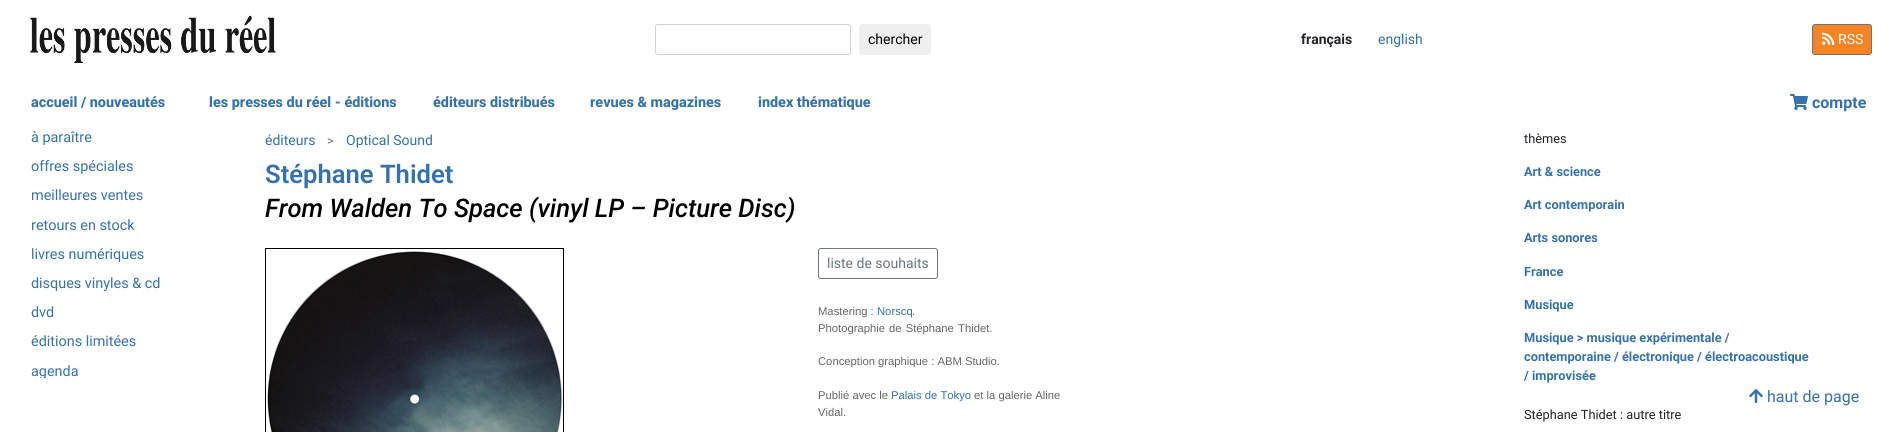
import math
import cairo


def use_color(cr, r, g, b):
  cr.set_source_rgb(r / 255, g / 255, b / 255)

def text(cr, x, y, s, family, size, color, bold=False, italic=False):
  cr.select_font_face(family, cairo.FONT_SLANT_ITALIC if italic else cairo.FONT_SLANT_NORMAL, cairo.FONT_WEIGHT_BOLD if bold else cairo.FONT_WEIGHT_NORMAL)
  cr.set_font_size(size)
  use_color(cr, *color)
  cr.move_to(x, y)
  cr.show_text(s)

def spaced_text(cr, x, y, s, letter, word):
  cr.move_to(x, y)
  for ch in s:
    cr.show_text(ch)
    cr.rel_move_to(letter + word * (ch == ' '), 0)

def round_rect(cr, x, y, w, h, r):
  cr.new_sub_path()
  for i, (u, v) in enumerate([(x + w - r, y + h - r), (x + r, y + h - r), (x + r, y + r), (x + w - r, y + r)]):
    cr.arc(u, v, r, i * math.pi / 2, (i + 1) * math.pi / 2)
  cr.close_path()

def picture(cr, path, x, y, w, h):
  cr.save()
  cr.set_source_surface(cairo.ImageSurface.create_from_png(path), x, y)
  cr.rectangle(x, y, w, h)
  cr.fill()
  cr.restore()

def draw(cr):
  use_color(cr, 255, 255, 255)
  cr.paint()
  picture(cr, "img_01.png", 30, 15, 246, 48)
  round_rect(cr, 655.5, 24.5, 195, 30, 2.5)
  use_color(cr, 206, 212, 218)
  cr.set_line_width(1)
  cr.stroke()
  use_color(cr, 239, 239, 239)
  round_rect(cr, 859, 24, 72, 31, 3)
  cr.fill()
  use_color(cr, 247, 132, 34)
  round_rect(cr, 1812.5, 24.5, 59, 30, 2.5)
  cr.fill_preserve()
  use_color(cr, 108, 117, 125)
  cr.stroke()
  picture(cr, "img_02.png", 1822, 32, 13, 13)
  picture(cr, "img_03.png", 1790, 94, 18, 16)
  cr.rectangle(265.5, 248.5, 298, 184)
  use_color(cr, 0, 0, 0)
  cr.stroke()
  picture(cr, "img_04.png", 267, 251, 296, 181)
  round_rect(cr, 818.5, 248.5, 119, 30, 2.5)
  use_color(cr, 108, 117, 125)
  cr.stroke()
  picture(cr, "img_05.png", 1749, 389, 14, 14)
  text(cr, 868, 44, "chercher", "Roboto", 14, (0, 0, 0))
  text(cr, 1301, 44, "français", "Roboto", 14, (33, 37, 41), bold=True)
  text(cr, 1378, 44, "english", "Roboto", 14, (53, 114, 174))
  text(cr, 1838, 44, "RSS", "Roboto", 14, (255, 255, 255))
  text(cr, 31, 107, "accueil / nouveautés", "Roboto ExtraBold", 14.4, (53, 114, 174))
  text(cr, 209, 107, "les presses du réel - éditions", "Roboto ExtraBold", 14.4, (53, 114, 174))
  text(cr, 433, 107, "éditeurs distribués", "Roboto ExtraBold", 14.4, (53, 114, 174))
  text(cr, 590, 107, "revues & magazines", "Roboto ExtraBold", 14.4, (53, 114, 174))
  text(cr, 758, 107, "index thématique", "Roboto ExtraBold", 14.4, (53, 114, 174))
  text(cr, 1812, 108, "compte", "Roboto", 16, (53, 114, 174), bold=True)
  text(cr, 31, 142, "à paraître", "Roboto", 14.4, (53, 114, 174))
  text(cr, 31, 171, "offres spéciales", "Roboto", 14.4, (53, 114, 174))
  text(cr, 31, 200, "meilleures ventes", "Roboto", 14.4, (53, 114, 174))
  text(cr, 31, 230, "retours en stock", "Roboto", 14.4, (53, 114, 174))
  text(cr, 31, 259, "livres numériques", "Roboto", 14.4, (53, 114, 174))
  text(cr, 31, 288, "disques vinyles & cd", "Roboto", 14.4, (53, 114, 174))
  text(cr, 31, 317, "dvd", "Roboto", 14.4, (53, 114, 174))
  text(cr, 31, 346, "éditions limitées", "Roboto", 14.4, (53, 114, 174))
  cr.save()
  cr.rectangle(15, 126, 161, 252)
  cr.clip()
  text(cr, 31, 376, "agenda", "Roboto", 14.4, (53, 114, 174))
  cr.restore()
  text(cr, 265, 145, "éditeurs", "Roboto", 14, (53, 114, 174))
  text(cr, 327, 145, ">", "Roboto", 12.8, (108, 117, 125))
  text(cr, 346, 145, "Optical Sound", "Roboto", 14, (53, 114, 174))
  text(cr, 265, 183, "Stéphane Thidet", "Roboto SemiBold", 25.6, (53, 114, 174))
  text(cr, 265, 217, "From Walden To Space (vinyl LP – Picture Disc)", "Roboto Medium", 25.6, (0, 0, 0), italic=True)
  text(cr, 827, 268, "liste de souhaits", "Roboto", 14, (108, 117, 125))
  text(cr, 818, 315, "Mastering :", "Liberation Sans", 11.25, (102, 102, 102))
  text(cr, 877, 315, "Norscq", "Liberation Sans", 11.25, (53, 114, 174))
  text(cr, 912, 315, ".", "Liberation Sans", 11.25, (102, 102, 102))
  spaced_text(cr, 818, 332, "Photographie de Stéphane Thidet.", 0, 1)
  text(cr, 818, 365, "Conception graphique : ABM Studio.", "Liberation Sans", 11.25, (102, 102, 102))
  text(cr, 818, 399, "Publié avec le", "Liberation Sans", 11.25, (102, 102, 102))
  text(cr, 891, 399, "Palais de Tokyo", "Liberation Sans", 11.25, (53, 114, 174))
  text(cr, 974, 399, "et la galerie Aline", "Liberation Sans", 11.25, (102, 102, 102))
  text(cr, 818, 416, "Vidal.", "Liberation Sans", 11.25, (102, 102, 102))
  text(cr, 1524, 143, "thèmes", "Roboto", 12.8, (33, 37, 41))
  text(cr, 1524, 176, "Art & science", "Roboto", 12.8, (53, 114, 174), bold=True)
  text(cr, 1524, 209, "Art contemporain", "Roboto", 12.8, (53, 114, 174), bold=True)
  text(cr, 1524, 242, "Arts sonores", "Roboto", 12.8, (53, 114, 174), bold=True)
  text(cr, 1524, 276, "France", "Roboto", 12.8, (53, 114, 174), bold=True)
  text(cr, 1524, 309, "Musique", "Roboto", 12.8, (53, 114, 174), bold=True)
  text(cr, 1524, 342, "Musique > musique expérimentale /", "Roboto", 12.8, (53, 114, 174), bold=True)
  text(cr, 1524, 361, "contemporaine / électronique / électroacoustique", "Roboto", 12.8, (53, 114, 174), bold=True)
  text(cr, 1524, 380, "/ improvisée", "Roboto", 12.8, (53, 114, 174), bold=True)
  text(cr, 1524, 419, "Stéphane Thidet : autre titre", "Roboto", 12.8, (33, 37, 41))
  text(cr, 1767, 402, "haut de page", "Roboto", 16, (53, 114, 174))


surface = cairo.ImageSurface(cairo.FORMAT_RGB24, 1888, 432)
cr = cairo.Context(surface)
options = cairo.FontOptions()
options.set_hint_metrics(cairo.HINT_METRICS_OFF)
options.set_hint_style(cairo.HINT_STYLE_NONE)
cr.set_font_options(options)
cr.set_miter_limit(4)
draw(cr)
surface.write_to_png("out.png")
